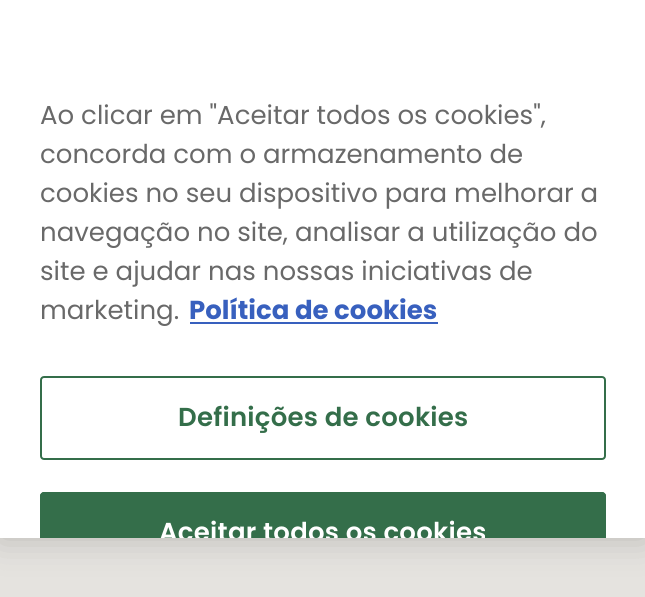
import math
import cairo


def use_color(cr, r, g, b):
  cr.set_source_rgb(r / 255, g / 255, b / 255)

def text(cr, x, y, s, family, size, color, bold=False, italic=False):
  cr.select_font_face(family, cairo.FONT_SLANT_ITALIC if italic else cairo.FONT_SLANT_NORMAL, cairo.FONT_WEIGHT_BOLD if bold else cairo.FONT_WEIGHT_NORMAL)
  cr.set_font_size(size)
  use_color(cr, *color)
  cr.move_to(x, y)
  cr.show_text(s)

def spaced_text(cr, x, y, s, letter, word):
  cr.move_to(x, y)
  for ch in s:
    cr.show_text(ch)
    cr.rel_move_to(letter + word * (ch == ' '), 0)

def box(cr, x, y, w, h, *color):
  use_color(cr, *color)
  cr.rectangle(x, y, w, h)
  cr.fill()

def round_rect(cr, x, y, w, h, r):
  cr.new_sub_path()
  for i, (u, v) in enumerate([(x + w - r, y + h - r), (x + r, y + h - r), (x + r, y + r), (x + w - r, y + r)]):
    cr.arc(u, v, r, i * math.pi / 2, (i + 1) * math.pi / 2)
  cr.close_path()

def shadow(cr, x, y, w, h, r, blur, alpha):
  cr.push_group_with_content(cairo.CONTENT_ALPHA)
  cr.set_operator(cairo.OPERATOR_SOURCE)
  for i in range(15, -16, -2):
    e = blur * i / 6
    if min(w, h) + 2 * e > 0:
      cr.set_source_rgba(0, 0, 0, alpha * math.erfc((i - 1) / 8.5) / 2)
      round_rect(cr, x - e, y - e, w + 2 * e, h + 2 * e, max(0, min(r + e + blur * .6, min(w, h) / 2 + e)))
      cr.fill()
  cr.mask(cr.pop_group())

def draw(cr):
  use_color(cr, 229, 227, 223)
  cr.paint()
  use_color(cr, 0, 0, 0)
  shadow(cr, 0, 0, 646, 538, 0, 18, 0.2)
  box(cr, 0, 0, 645, 538, 255, 255, 255)
  box(cr, 190, 322, 248, 2, 56, 96, 190)
  round_rect(cr, 41, 377, 564, 82, 3)
  use_color(cr, 52, 110, 74)
  cr.stroke()
  cr.new_path()
  cr.move_to(44, 492)
  cr.line_to(602, 492)
  cr.curve_to(604, 492, 606, 494, 606, 496)
  cr.line_to(606, 538)
  cr.line_to(40, 538)
  cr.line_to(40, 496)
  cr.curve_to(40, 494, 42, 492, 44, 492)
  cr.close_path()
  cr.fill()
  cr.save()
  cr.rectangle(0, 0, 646, 538)
  cr.clip()
  round_rect(cr, 41, 493, 564, 80, 3)
  cr.stroke()
  cr.restore()
  text(cr, 40, 124, "Ao clicar em \"Aceitar todos os cookies\",", "Poppins", 26, (105, 105, 105))
  text(cr, 40, 163, "concorda com o armazenamento de", "Poppins", 26, (105, 105, 105))
  text(cr, 40, 202, "cookies no seu dispositivo para melhorar a", "Poppins", 26, (105, 105, 105))
  text(cr, 40, 241, "navegação no site, analisar a utilização do", "Poppins", 26, (105, 105, 105))
  text(cr, 40, 280, "site e ajudar nas nossas iniciativas de", "Poppins", 26, (105, 105, 105))
  text(cr, 40, 319, "marketing.", "Poppins", 26, (105, 105, 105))
  text(cr, 189, 319, "Política de cookies", "Poppins", 26, (56, 96, 190), bold=True)
  cr.select_font_face("Poppins SemiBold")
  use_color(cr, 52, 110, 74)
  spaced_text(cr, 178, 426, "Definições de cookies", 0.25, 0)
  cr.save()
  cr.rectangle(0, 0, 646, 538)
  cr.clip()
  use_color(cr, 255, 255, 255)
  spaced_text(cr, 159, 541, "Aceitar todos os cookies", 0.25, 0)
  cr.restore()


surface = cairo.ImageSurface(cairo.FORMAT_RGB24, 645, 597)
cr = cairo.Context(surface)
options = cairo.FontOptions()
options.set_hint_metrics(cairo.HINT_METRICS_OFF)
options.set_hint_style(cairo.HINT_STYLE_NONE)
cr.set_font_options(options)
cr.set_miter_limit(4)
draw(cr)
surface.write_to_png("out.png")
